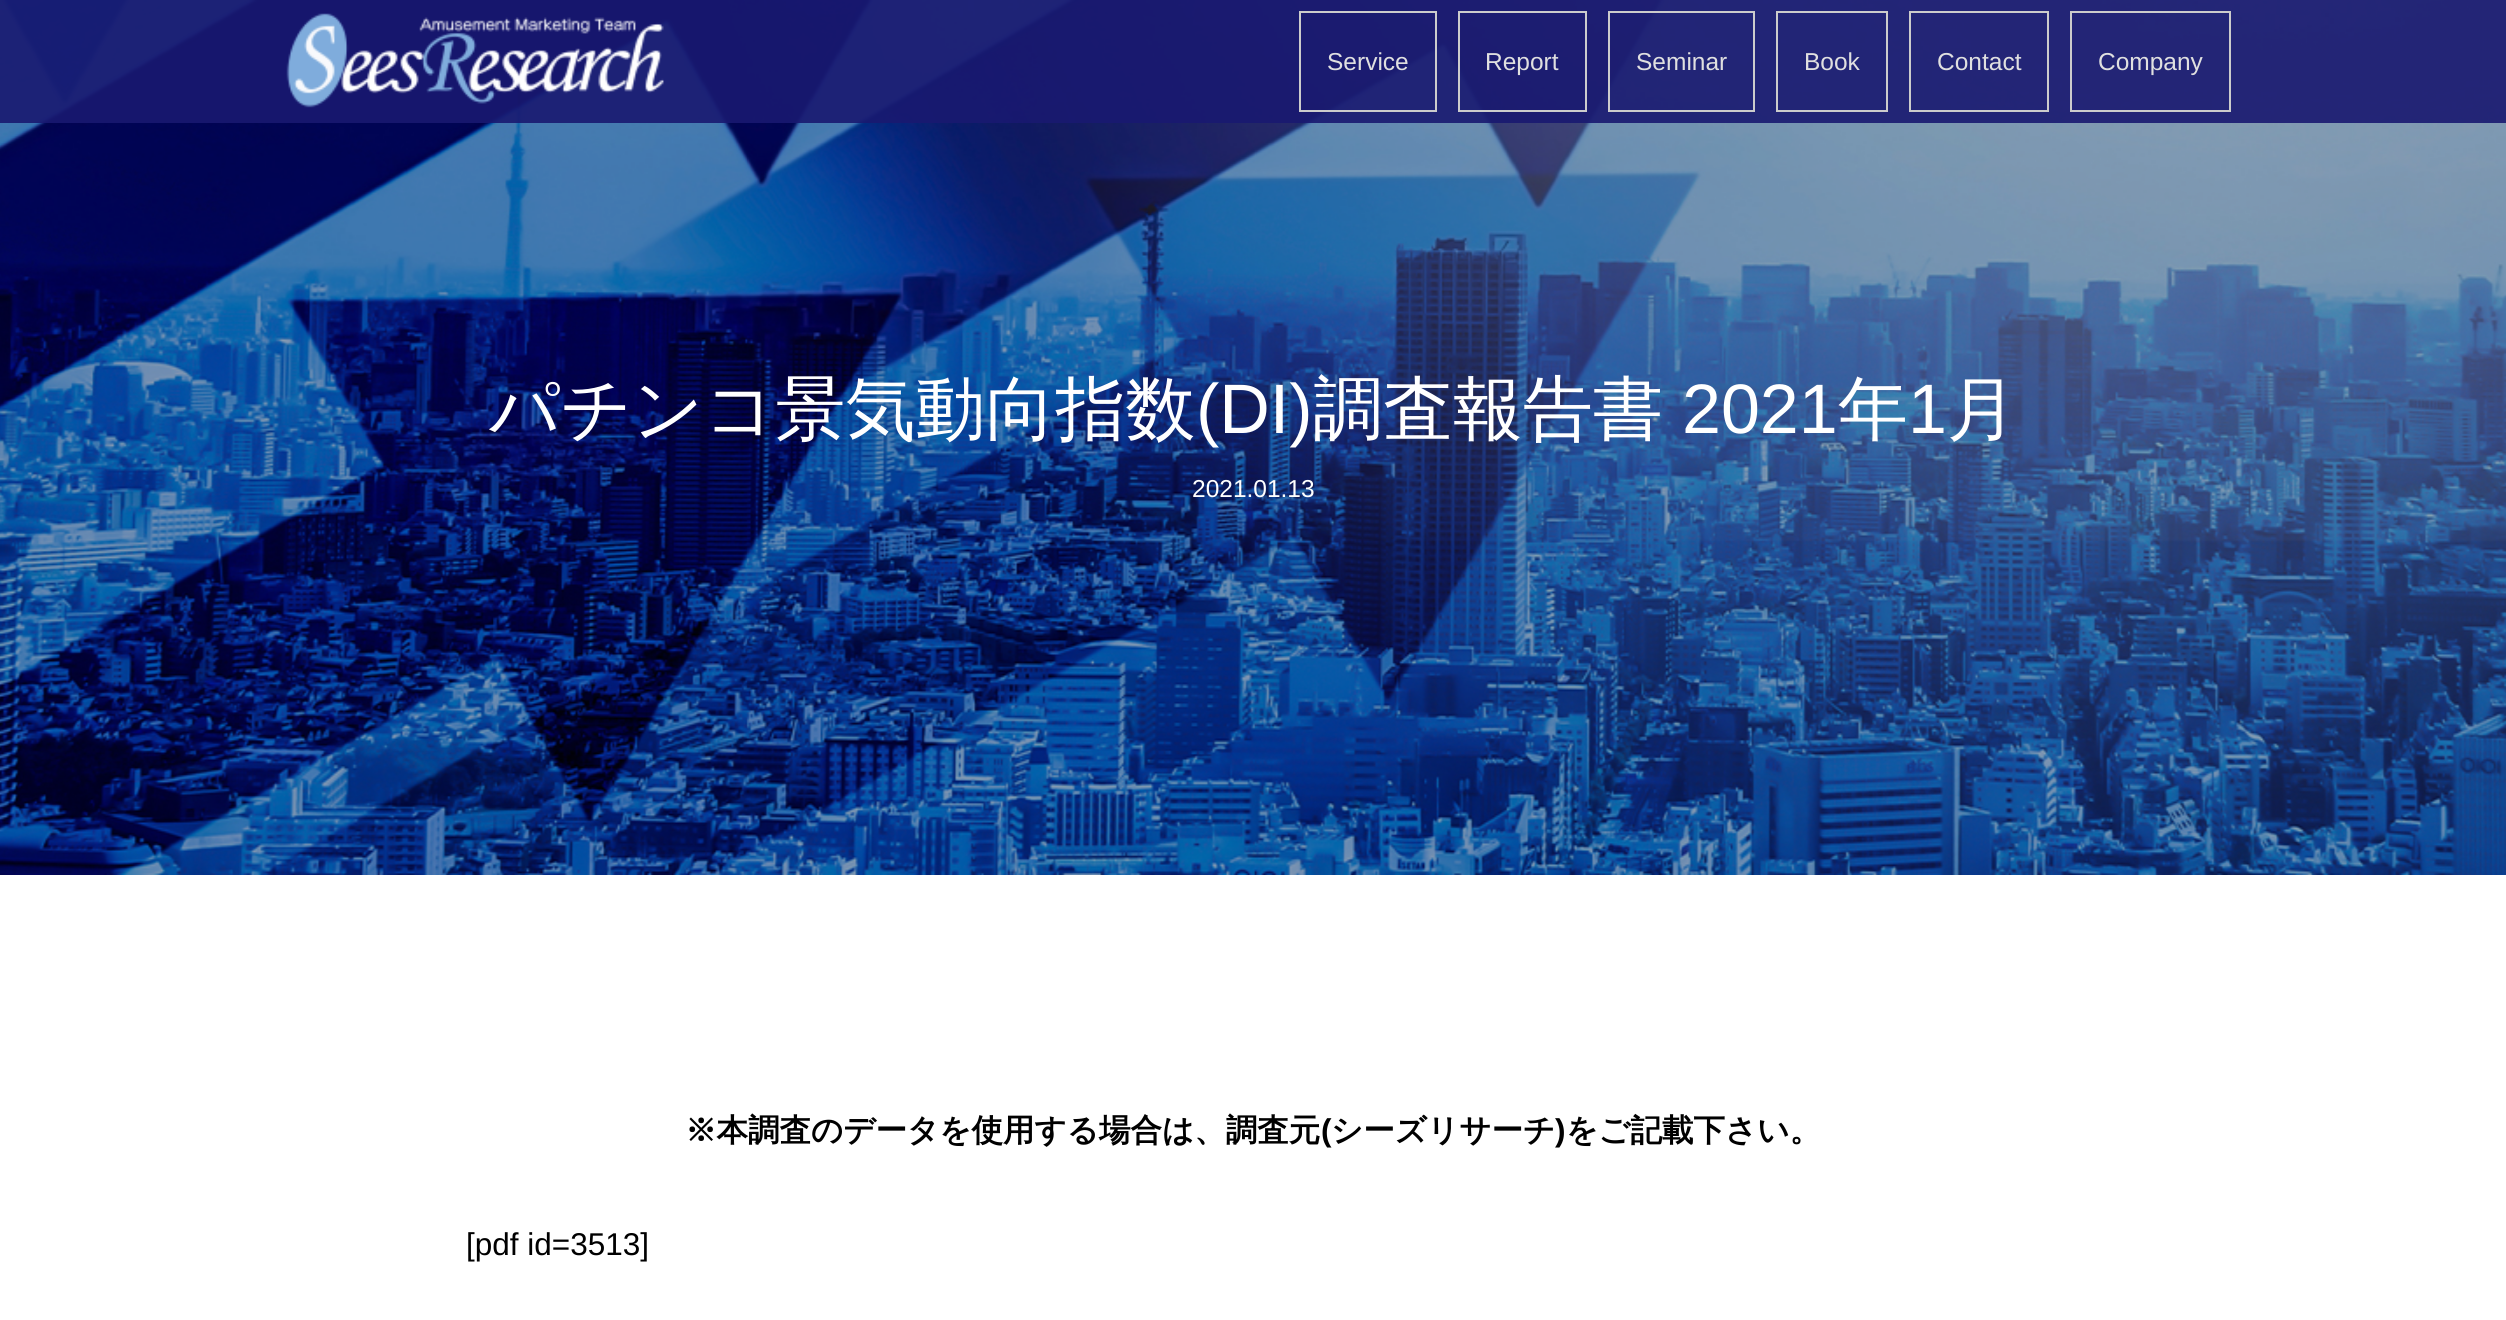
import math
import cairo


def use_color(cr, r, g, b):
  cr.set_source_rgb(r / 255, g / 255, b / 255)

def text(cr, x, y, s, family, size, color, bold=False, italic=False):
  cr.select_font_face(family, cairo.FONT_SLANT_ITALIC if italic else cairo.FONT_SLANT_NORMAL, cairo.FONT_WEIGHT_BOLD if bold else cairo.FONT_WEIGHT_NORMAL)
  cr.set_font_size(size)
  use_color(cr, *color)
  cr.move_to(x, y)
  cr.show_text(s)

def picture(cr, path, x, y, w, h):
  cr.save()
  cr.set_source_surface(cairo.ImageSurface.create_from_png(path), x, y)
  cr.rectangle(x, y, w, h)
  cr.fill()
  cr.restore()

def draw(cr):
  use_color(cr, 255, 255, 255)
  cr.paint()
  picture(cr, "img_01.png", 0, 0, 2506, 875)
  cr.set_source_rgba(0.098, 0.098, 0.439, 0.9)
  cr.rectangle(0, 0, 2506, 123)
  cr.fill()
  picture(cr, "img_02.png", 286, 13, 378, 95)
  cr.rectangle(1300, 12, 136, 99)
  use_color(cr, 204, 204, 204)
  cr.stroke()
  cr.rectangle(1459, 12, 127, 99)
  cr.stroke()
  cr.rectangle(1609, 12, 145, 99)
  cr.stroke()
  cr.rectangle(1777, 12, 110, 99)
  cr.stroke()
  cr.rectangle(1910, 12, 138, 99)
  cr.stroke()
  cr.rectangle(2071, 12, 159, 99)
  cr.stroke()
  text(cr, 1327, 70, "Service", "Liberation Sans", 24.5, (224, 224, 224))
  text(cr, 1485, 70, "Report", "Liberation Sans", 24.5, (224, 224, 224))
  text(cr, 1636, 70, "Seminar", "Liberation Sans", 24.5, (224, 224, 224))
  text(cr, 1804, 70, "Book", "Liberation Sans", 24.5, (224, 224, 224))
  text(cr, 1937, 70, "Contact", "Liberation Sans", 24.5, (224, 224, 224))
  text(cr, 2098, 70, "Company", "Liberation Sans", 24.5, (224, 224, 224))
  text(cr, 489, 433, "パチンコ景気動向指数", "WenQuanYi Zen Hei Medium", 70, (255, 255, 255))
  text(cr, 1196, 433, "(DI)", "Liberation Sans", 70, (255, 255, 255))
  text(cr, 1313, 433, "調査報告書", "WenQuanYi Zen Hei Medium", 70, (255, 255, 255))
  text(cr, 1682, 433, "2021", "Liberation Sans", 70, (255, 255, 255))
  text(cr, 1838, 433, "年", "WenQuanYi Zen Hei Medium", 70, (255, 255, 255))
  text(cr, 1908, 433, "1", "Liberation Sans", 70, (255, 255, 255))
  text(cr, 1947, 433, "月", "WenQuanYi Zen Hei Medium", 70, (255, 255, 255))
  text(cr, 1192, 497, "2021.01.13", "Liberation Sans", 24.5, (255, 255, 255))
  text(cr, 685, 1141, "※本調査のデータを使用する場合は、調査元", "WenQuanYi Zen Hei", 31.5, (0, 0, 0), bold=True)
  text(cr, 1321, 1141, "(", "Liberation Sans", 31.5, (0, 0, 0), bold=True)
  text(cr, 1331, 1141, "シーズリサーチ", "WenQuanYi Zen Hei", 31.5, (0, 0, 0), bold=True)
  text(cr, 1555, 1141, ")", "Liberation Sans", 31.5, (0, 0, 0), bold=True)
  text(cr, 1566, 1141, "をご記載下さい。", "WenQuanYi Zen Hei", 31.5, (0, 0, 0), bold=True)
  text(cr, 466, 1255, "[pdf id=3513]", "Liberation Sans", 31.5, (0, 0, 0))


surface = cairo.ImageSurface(cairo.FORMAT_RGB24, 2506, 1320)
cr = cairo.Context(surface)
options = cairo.FontOptions()
options.set_hint_metrics(cairo.HINT_METRICS_OFF)
options.set_hint_style(cairo.HINT_STYLE_NONE)
cr.set_font_options(options)
cr.set_miter_limit(4)
draw(cr)
surface.write_to_png("out.png")
